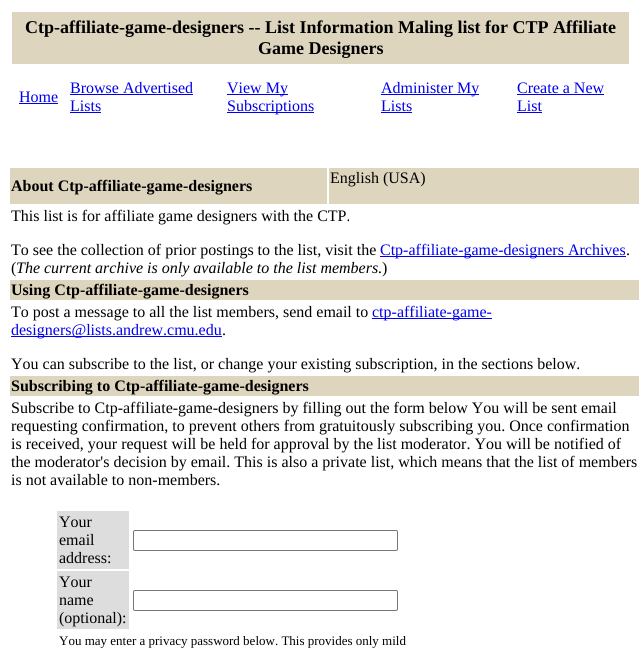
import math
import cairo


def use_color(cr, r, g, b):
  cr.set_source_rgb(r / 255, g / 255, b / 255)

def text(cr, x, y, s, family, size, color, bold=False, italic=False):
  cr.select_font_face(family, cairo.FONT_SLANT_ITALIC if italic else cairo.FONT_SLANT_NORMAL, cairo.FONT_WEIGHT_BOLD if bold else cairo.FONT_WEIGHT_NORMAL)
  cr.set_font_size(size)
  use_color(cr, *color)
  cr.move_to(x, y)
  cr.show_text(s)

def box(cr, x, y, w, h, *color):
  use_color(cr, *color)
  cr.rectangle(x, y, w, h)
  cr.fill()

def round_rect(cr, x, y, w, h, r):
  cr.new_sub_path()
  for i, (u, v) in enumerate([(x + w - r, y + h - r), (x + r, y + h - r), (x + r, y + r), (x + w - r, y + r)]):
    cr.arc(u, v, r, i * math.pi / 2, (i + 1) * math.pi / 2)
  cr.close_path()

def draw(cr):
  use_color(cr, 255, 255, 255)
  cr.paint()
  box(cr, 12, 12, 617, 52, 221, 213, 190)
  box(cr, 19, 103, 39, 1, 0, 0, 238)
  box(cr, 70, 94, 123, 1, 0, 0, 238)
  box(cr, 70, 112, 31, 1, 0, 0, 238)
  box(cr, 227, 94, 61, 1, 0, 0, 238)
  box(cr, 227, 112, 87, 1, 0, 0, 238)
  box(cr, 381, 94, 98, 1, 0, 0, 238)
  box(cr, 381, 112, 31, 1, 0, 0, 238)
  box(cr, 517, 94, 87, 1, 0, 0, 238)
  box(cr, 517, 112, 25, 1, 0, 0, 238)
  box(cr, 10, 168, 317, 36, 221, 213, 190)
  box(cr, 329, 168, 310, 36, 221, 213, 190)
  box(cr, 380, 256, 246, 1, 0, 0, 238)
  box(cr, 10, 280, 629, 20, 221, 213, 190)
  box(cr, 372, 318, 120, 1, 0, 0, 238)
  box(cr, 11, 336, 211, 1, 0, 0, 238)
  box(cr, 10, 376, 629, 20, 221, 213, 190)
  box(cr, 57, 511, 72, 58, 221, 221, 221)
  round_rect(cr, 133.5, 530.5, 264, 20, 1.5)
  use_color(cr, 118, 118, 118)
  cr.set_line_width(1)
  cr.stroke()
  box(cr, 57, 571, 72, 58, 221, 221, 221)
  round_rect(cr, 133.5, 590.5, 264, 20, 1.5)
  use_color(cr, 118, 118, 118)
  cr.stroke()
  text(cr, 25, 33, "Ctp-affiliate-game-designers -- List Information Maling list for CTP Affiliate", "Liberation Serif", 18, (0, 0, 0), bold=True)
  text(cr, 258, 54, "Game Designers", "Liberation Serif", 18, (0, 0, 0), bold=True)
  text(cr, 19, 102, "Home", "Liberation Serif", 16, (0, 0, 238))
  text(cr, 70, 93, "Browse Advertised", "Liberation Serif", 16, (0, 0, 238))
  text(cr, 70, 111, "Lists", "Liberation Serif", 16, (0, 0, 238))
  text(cr, 227, 93, "View My", "Liberation Serif", 16, (0, 0, 238))
  text(cr, 227, 111, "Subscriptions", "Liberation Serif", 16, (0, 0, 238))
  text(cr, 381, 93, "Administer My", "Liberation Serif", 16, (0, 0, 238))
  text(cr, 381, 111, "Lists", "Liberation Serif", 16, (0, 0, 238))
  text(cr, 517, 93, "Create a New", "Liberation Serif", 16, (0, 0, 238))
  text(cr, 517, 111, "List", "Liberation Serif", 16, (0, 0, 238))
  text(cr, 11, 191, "About Ctp-affiliate-game-designers", "Liberation Serif", 16, (0, 0, 0), bold=True)
  text(cr, 330, 183, "English (USA)", "Liberation Serif", 16, (0, 0, 0))
  text(cr, 11, 221, "This list is for affiliate game designers with the CTP.", "Liberation Serif", 16, (0, 0, 0))
  text(cr, 11, 255, "To see the collection of prior postings to the list, visit the", "Liberation Serif", 16, (0, 0, 0))
  text(cr, 380, 255, "Ctp-affiliate-game-designers Archives", "Liberation Serif", 16, (0, 0, 238))
  text(cr, 626, 255, ".", "Liberation Serif", 16, (0, 0, 0))
  text(cr, 11, 273, "(", "Liberation Serif", 16, (0, 0, 0))
  text(cr, 16, 273, "The current archive is only available to the list members.", "Liberation Serif", 16, (0, 0, 0), italic=True)
  text(cr, 382, 273, ")", "Liberation Serif", 16, (0, 0, 0))
  text(cr, 11, 295, "Using Ctp-affiliate-game-designers", "Liberation Serif", 16, (0, 0, 0), bold=True)
  text(cr, 11, 317, "To post a message to all the list members, send email to", "Liberation Serif", 16, (0, 0, 0))
  text(cr, 372, 317, "ctp-affiliate-game-", "Liberation Serif", 16, (0, 0, 238))
  text(cr, 11, 335, "designers@lists.andrew.cmu.edu", "Liberation Serif", 16, (0, 0, 238))
  text(cr, 222, 335, ".", "Liberation Serif", 16, (0, 0, 0))
  text(cr, 11, 369, "You can subscribe to the list, or change your existing subscription, in the sections below.", "Liberation Serif", 16, (0, 0, 0))
  text(cr, 11, 391, "Subscribing to Ctp-affiliate-game-designers", "Liberation Serif", 16, (0, 0, 0), bold=True)
  text(cr, 11, 413, "Subscribe to Ctp-affiliate-game-designers by filling out the form below You will be sent email", "Liberation Serif", 16, (0, 0, 0))
  text(cr, 11, 431, "requesting confirmation, to prevent others from gratuitously subscribing you. Once confirmation", "Liberation Serif", 16, (0, 0, 0))
  text(cr, 11, 449, "is received, your request will be held for approval by the list moderator. You will be notified of", "Liberation Serif", 16, (0, 0, 0))
  text(cr, 11, 467, "the moderator's decision by email. This is also a private list, which means that the list of members", "Liberation Serif", 16, (0, 0, 0))
  text(cr, 11, 485, "is not available to non-members.", "Liberation Serif", 16, (0, 0, 0))
  text(cr, 59, 527, "Your", "Liberation Serif", 16, (0, 0, 0))
  text(cr, 59, 545, "email", "Liberation Serif", 16, (0, 0, 0))
  text(cr, 59, 563, "address:", "Liberation Serif", 16, (0, 0, 0))
  text(cr, 59, 587, "Your", "Liberation Serif", 16, (0, 0, 0))
  text(cr, 59, 605, "name", "Liberation Serif", 16, (0, 0, 0))
  text(cr, 59, 623, "(optional):", "Liberation Serif", 16, (0, 0, 0))
  text(cr, 59, 645, "You may enter a privacy password below. This provides only mild", "Liberation Serif", 13, (0, 0, 0))


surface = cairo.ImageSurface(cairo.FORMAT_RGB24, 641, 649)
cr = cairo.Context(surface)
options = cairo.FontOptions()
options.set_hint_metrics(cairo.HINT_METRICS_OFF)
options.set_hint_style(cairo.HINT_STYLE_NONE)
cr.set_font_options(options)
cr.set_miter_limit(4)
draw(cr)
surface.write_to_png("out.png")
